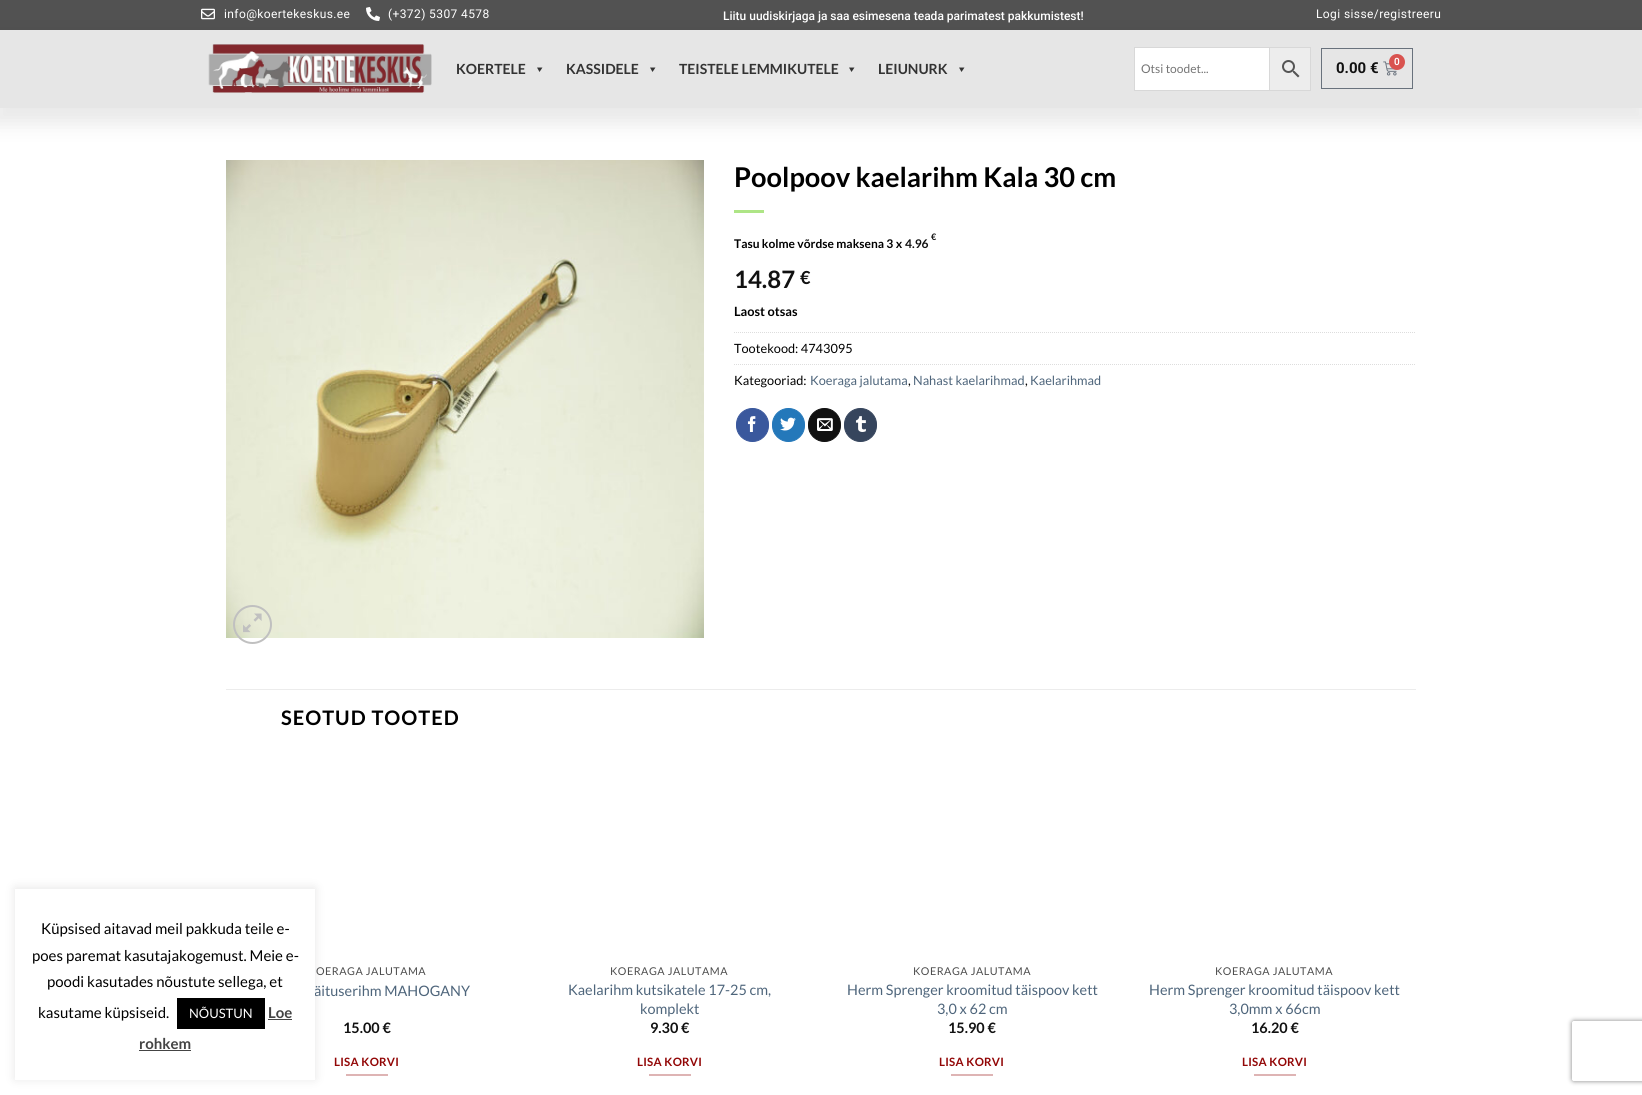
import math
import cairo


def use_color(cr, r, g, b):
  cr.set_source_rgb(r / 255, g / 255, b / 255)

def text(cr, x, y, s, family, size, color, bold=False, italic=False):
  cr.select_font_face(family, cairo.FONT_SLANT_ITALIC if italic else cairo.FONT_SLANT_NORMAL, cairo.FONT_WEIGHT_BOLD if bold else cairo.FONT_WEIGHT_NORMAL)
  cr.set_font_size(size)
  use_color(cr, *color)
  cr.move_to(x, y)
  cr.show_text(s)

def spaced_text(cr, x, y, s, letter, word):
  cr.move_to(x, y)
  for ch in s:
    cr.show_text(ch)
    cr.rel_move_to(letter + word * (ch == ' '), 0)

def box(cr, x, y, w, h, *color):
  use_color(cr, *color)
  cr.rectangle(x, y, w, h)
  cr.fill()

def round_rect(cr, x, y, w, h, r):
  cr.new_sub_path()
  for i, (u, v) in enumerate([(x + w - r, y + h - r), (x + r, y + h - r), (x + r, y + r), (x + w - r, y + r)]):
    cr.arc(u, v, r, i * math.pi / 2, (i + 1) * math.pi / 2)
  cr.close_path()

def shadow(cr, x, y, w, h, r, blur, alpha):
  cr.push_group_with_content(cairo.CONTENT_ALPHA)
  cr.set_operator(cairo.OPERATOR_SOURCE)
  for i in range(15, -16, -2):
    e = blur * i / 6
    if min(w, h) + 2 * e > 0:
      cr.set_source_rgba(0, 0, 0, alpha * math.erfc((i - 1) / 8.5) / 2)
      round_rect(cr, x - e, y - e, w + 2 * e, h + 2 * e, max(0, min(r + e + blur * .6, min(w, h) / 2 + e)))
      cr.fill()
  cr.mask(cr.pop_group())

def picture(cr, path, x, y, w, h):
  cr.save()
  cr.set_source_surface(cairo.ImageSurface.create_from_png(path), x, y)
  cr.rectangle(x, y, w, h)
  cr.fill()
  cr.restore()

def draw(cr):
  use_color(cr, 255, 255, 255)
  cr.paint()
  box(cr, 0, 0, 1642, 30, 82, 82, 82)
  picture(cr, "img_01.png", 201, 8, 14, 12)
  picture(cr, "img_02.png", 366, 7, 14, 14)
  use_color(cr, 0, 0, 0)
  shadow(cr, -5, 35, 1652, 89, 0, 10, 0.09)
  box(cr, 0, 30, 1642, 78, 230, 230, 230)
  picture(cr, "img_03.png", 208, 44, 224, 49)
  use_color(cr, 51, 51, 51)
  cr.new_path()
  cr.move_to(542.5, 67.5)
  cr.line_to(539.5, 72)
  cr.line_to(537, 67.5)
  cr.close_path()
  cr.fill()
  cr.new_path()
  cr.move_to(655.5, 67.5)
  cr.line_to(652.5, 72)
  cr.line_to(650, 67.5)
  cr.close_path()
  cr.fill()
  cr.new_path()
  cr.move_to(854.5, 67.5)
  cr.line_to(851.5, 72)
  cr.line_to(849, 67.5)
  cr.close_path()
  cr.fill()
  cr.new_path()
  cr.move_to(964.5, 67.5)
  cr.line_to(961.5, 72)
  cr.line_to(959, 67.5)
  cr.close_path()
  cr.fill()
  use_color(cr, 237, 237, 237)
  cr.rectangle(1269.5, 47.5, 41, 43)
  cr.fill_preserve()
  use_color(cr, 216, 216, 216)
  cr.set_line_width(1)
  cr.stroke()
  use_color(cr, 255, 255, 255)
  cr.rectangle(1134.5, 47.5, 135, 43)
  cr.fill_preserve()
  use_color(cr, 216, 216, 216)
  cr.stroke()
  picture(cr, "img_04.png", 1282, 60, 18, 18)
  cr.rectangle(1321.5, 48.5, 91, 40)
  use_color(cr, 105, 114, 125)
  cr.stroke()
  picture(cr, "img_05.png", 1383, 61, 14, 15)
  use_color(cr, 217, 83, 79)
  cr.arc(1397, 62, 8, 0, 2 * math.pi)
  cr.fill()
  use_color(cr, 172, 171, 171)
  shadow(cr, 15, 888, 300, 191, 0, 5, 0.3)
  picture(cr, "img_06.png", 226, 160, 478, 478)
  cr.arc(252.5, 624.5, 18.5, 0, 2 * math.pi)
  use_color(cr, 192, 192, 192)
  cr.set_line_width(2)
  cr.stroke()
  picture(cr, "img_07.png", 243, 613, 19, 20)
  box(cr, 734, 210, 30, 3, 174, 229, 134)
  cr.new_path()
  cr.move_to(734, 332.5)
  cr.line_to(1416, 332.5)
  use_color(cr, 221, 221, 221)
  cr.set_line_width(1)
  cr.set_dash([1, 1])
  cr.stroke()
  cr.new_path()
  cr.move_to(734, 364.5)
  cr.line_to(1416, 364.5)
  cr.stroke()
  use_color(cr, 58, 88, 157)
  round_rect(cr, 736.5, 408.5, 32, 33, 16)
  cr.fill_preserve()
  cr.set_dash([])
  cr.stroke()
  picture(cr, "img_08.png", 747, 416, 9, 16)
  use_color(cr, 36, 120, 186)
  round_rect(cr, 772.5, 408.5, 32, 33, 16)
  cr.fill_preserve()
  cr.stroke()
  picture(cr, "img_09.png", 780, 417, 16, 14)
  use_color(cr, 17, 17, 17)
  round_rect(cr, 808.5, 408.5, 32, 33, 16)
  cr.fill_preserve()
  cr.stroke()
  picture(cr, "img_10.png", 817, 418, 16, 13)
  use_color(cr, 54, 69, 93)
  round_rect(cr, 844.5, 408.5, 32, 33, 16)
  cr.fill_preserve()
  cr.stroke()
  picture(cr, "img_11.png", 855, 416, 11, 16)
  box(cr, 226, 689, 1190, 1, 236, 236, 236)
  box(cr, 346, 1074, 42, 2, 222, 180, 180)
  box(cr, 649, 1074, 42, 2, 222, 180, 180)
  box(cr, 951, 1074, 42, 2, 222, 180, 180)
  box(cr, 1254, 1074, 42, 2, 222, 180, 180)
  cr.save()
  cr.set_fill_rule(cairo.FILL_RULE_EVEN_ODD)
  cr.new_path()
  cr.move_to(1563, 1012)
  cr.line_to(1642, 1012)
  cr.line_to(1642, 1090)
  cr.line_to(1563, 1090)
  cr.close_path()
  cr.move_to(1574, 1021)
  cr.line_to(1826, 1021)
  cr.curve_to(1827, 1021, 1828, 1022, 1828, 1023)
  cr.line_to(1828, 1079)
  cr.curve_to(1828, 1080, 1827, 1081, 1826, 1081)
  cr.line_to(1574, 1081)
  cr.curve_to(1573, 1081, 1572, 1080, 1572, 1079)
  cr.line_to(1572, 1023)
  cr.curve_to(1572, 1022, 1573, 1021, 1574, 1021)
  cr.close_path()
  cr.clip()
  use_color(cr, 128, 128, 128)
  shadow(cr, 1572, 1021, 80, 60, 2, 2.5, 1)
  cr.restore()
  cr.select_font_face("Roboto")
  cr.set_font_size(12)
  use_color(cr, 255, 255, 255)
  spaced_text(cr, 224, 18, "info@koertekeskus.ee", 0.4, 0)
  spaced_text(cr, 388, 18, "(+372) 5307 4578", 0.4, 0)
  text(cr, 723, 20, "Liitu uudiskirjaga ja saa esimesena teada parimatest pakkumistest!", "Roboto Medium", 12, (255, 255, 255))
  cr.select_font_face("Roboto")
  spaced_text(cr, 1316, 18, "Logi sisse/registreeru", 0.4, 0)
  text(cr, 456, 74, "KOERTELE", "Lato", 14, (51, 51, 51), bold=True)
  text(cr, 566, 74, "KASSIDELE", "Lato", 14, (51, 51, 51), bold=True)
  text(cr, 679, 74, "TEISTELE LEMMIKUTELE", "Lato", 14, (51, 51, 51), bold=True)
  text(cr, 878, 74, "LEIUNURK", "Lato", 14, (51, 51, 51), bold=True)
  text(cr, 1141, 73, "Otsi toodet...", "Lato", 12, (117, 117, 117))
  text(cr, 1336, 73, "0.00 €", "Roboto", 15, (17, 17, 17), bold=True)
  text(cr, 1394, 65, "0", "Roboto SemiBold", 10, (255, 255, 255))
  text(cr, 734, 187, "Poolpoov kaelarihm Kala 30 cm", "Lato", 27.25, (0, 0, 0), bold=True)
  text(cr, 734, 248, "Tasu kolme võrdse maksena 3 x", "Lato", 12, (0, 0, 0), bold=True)
  text(cr, 931, 240, "€", "Lato", 9, (17, 17, 17), bold=True)
  text(cr, 905, 248, "4.96", "Lato", 12, (17, 17, 17), bold=True)
  text(cr, 734, 288, "14.87", "Lato", 24, (17, 17, 17), bold=True)
  text(cr, 800, 284, "€", "Lato", 18, (17, 17, 17), bold=True)
  text(cr, 734, 316, "Laost otsas", "Lato", 12.75, (0, 0, 0), bold=True)
  text(cr, 734, 353, "Tootekood: 4743095", "Lato", 12.75, (0, 0, 0))
  text(cr, 734, 385, "Kategooriad:", "Lato", 12.75, (0, 0, 0))
  text(cr, 810, 385, "Koeraga jalutama", "Lato", 12.75, (78, 101, 123))
  text(cr, 908, 385, ",", "Lato", 12.75, (0, 0, 0))
  text(cr, 913, 385, "Nahast kaelarihmad", "Lato", 12.75, (78, 101, 123))
  text(cr, 1025, 385, ",", "Lato", 12.75, (0, 0, 0))
  text(cr, 1030, 385, "Kaelarihmad", "Lato", 12.75, (78, 101, 123))
  cr.select_font_face("Lato", cairo.FONT_SLANT_NORMAL, cairo.FONT_WEIGHT_BOLD)
  cr.set_font_size(20)
  use_color(cr, 0, 0, 0)
  spaced_text(cr, 281, 725, "SEOTUD TOOTED", 1, 0)
  cr.select_font_face("Lato")
  cr.set_font_size(10.75)
  use_color(cr, 77, 77, 77)
  spaced_text(cr, 316, 975, "OERAGA JALUTAMA", 0.5, 0)
  text(cr, 314, 996, "äituserihm MAHOGANY", "Lato", 14.4, (78, 101, 123))
  box(cr, 15, 889, 300, 191, 255, 255, 255)
  box(cr, 177, 998, 88, 31, 0, 0, 0)
  text(cr, 189, 1018, "NÕUSTUN", "Lato", 13, (255, 255, 255))
  text(cr, 139, 1049, "rohkem", "Lato", 15, (68, 68, 68), bold=True)
  box(cr, 139, 1050, 52, 1, 68, 68, 68)
  text(cr, 268, 1018, "Loe", "Lato", 15, (68, 68, 68), bold=True)
  box(cr, 268, 1019, 24, 1, 68, 68, 68)
  text(cr, 38, 1018, "kasutame küpsiseid.", "Lato", 15, (0, 0, 0))
  text(cr, 47, 987, "poodi kasutades nõustute sellega, et", "Lato", 15, (0, 0, 0))
  text(cr, 32, 961, "poes paremat kasutajakogemust. Meie e-", "Lato", 15, (0, 0, 0))
  text(cr, 41, 934, "Küpsised aitavad meil pakkuda teile e-", "Lato", 15, (0, 0, 0))
  text(cr, 343, 1033, "15.00 €", "Lato", 14.4, (17, 17, 17), bold=True)
  cr.set_font_size(11.5)
  use_color(cr, 146, 6, 6)
  spaced_text(cr, 334, 1066, "LISA KORVI", 0.25, 0)
  cr.select_font_face("Lato")
  cr.set_font_size(10.75)
  use_color(cr, 77, 77, 77)
  spaced_text(cr, 610, 975, "KOERAGA JALUTAMA", 0.5, 0)
  text(cr, 568, 995, "Kaelarihm kutsikatele 17-25 cm,", "Lato", 14.4, (78, 101, 123))
  text(cr, 640, 1014, "komplekt", "Lato", 14.4, (78, 101, 123))
  text(cr, 650, 1033, "9.30 €", "Lato", 14.4, (17, 17, 17), bold=True)
  cr.set_font_size(11.5)
  use_color(cr, 146, 6, 6)
  spaced_text(cr, 637, 1066, "LISA KORVI", 0.25, 0)
  cr.select_font_face("Lato")
  cr.set_font_size(10.75)
  use_color(cr, 77, 77, 77)
  spaced_text(cr, 913, 975, "KOERAGA JALUTAMA", 0.5, 0)
  text(cr, 847, 995, "Herm Sprenger kroomitud täispoov kett", "Lato", 14.4, (78, 101, 123))
  text(cr, 937, 1014, "3,0 x 62 cm", "Lato", 14.4, (78, 101, 123))
  text(cr, 948, 1033, "15.90 €", "Lato", 14.4, (17, 17, 17), bold=True)
  cr.set_font_size(11.5)
  use_color(cr, 146, 6, 6)
  spaced_text(cr, 939, 1066, "LISA KORVI", 0.25, 0)
  cr.select_font_face("Lato")
  cr.set_font_size(10.75)
  use_color(cr, 77, 77, 77)
  spaced_text(cr, 1215, 975, "KOERAGA JALUTAMA", 0.5, 0)
  text(cr, 1149, 995, "Herm Sprenger kroomitud täispoov kett", "Lato", 14.4, (78, 101, 123))
  text(cr, 1229, 1014, "3,0mm x 66cm", "Lato", 14.4, (78, 101, 123))
  text(cr, 1251, 1033, "16.20 €", "Lato", 14.4, (17, 17, 17), bold=True)
  cr.set_font_size(11.5)
  use_color(cr, 146, 6, 6)
  spaced_text(cr, 1242, 1066, "LISA KORVI", 0.25, 0)


surface = cairo.ImageSurface(cairo.FORMAT_RGB24, 1642, 1095)
cr = cairo.Context(surface)
options = cairo.FontOptions()
options.set_hint_metrics(cairo.HINT_METRICS_OFF)
options.set_hint_style(cairo.HINT_STYLE_NONE)
cr.set_font_options(options)
cr.set_miter_limit(4)
draw(cr)
surface.write_to_png("out.png")
